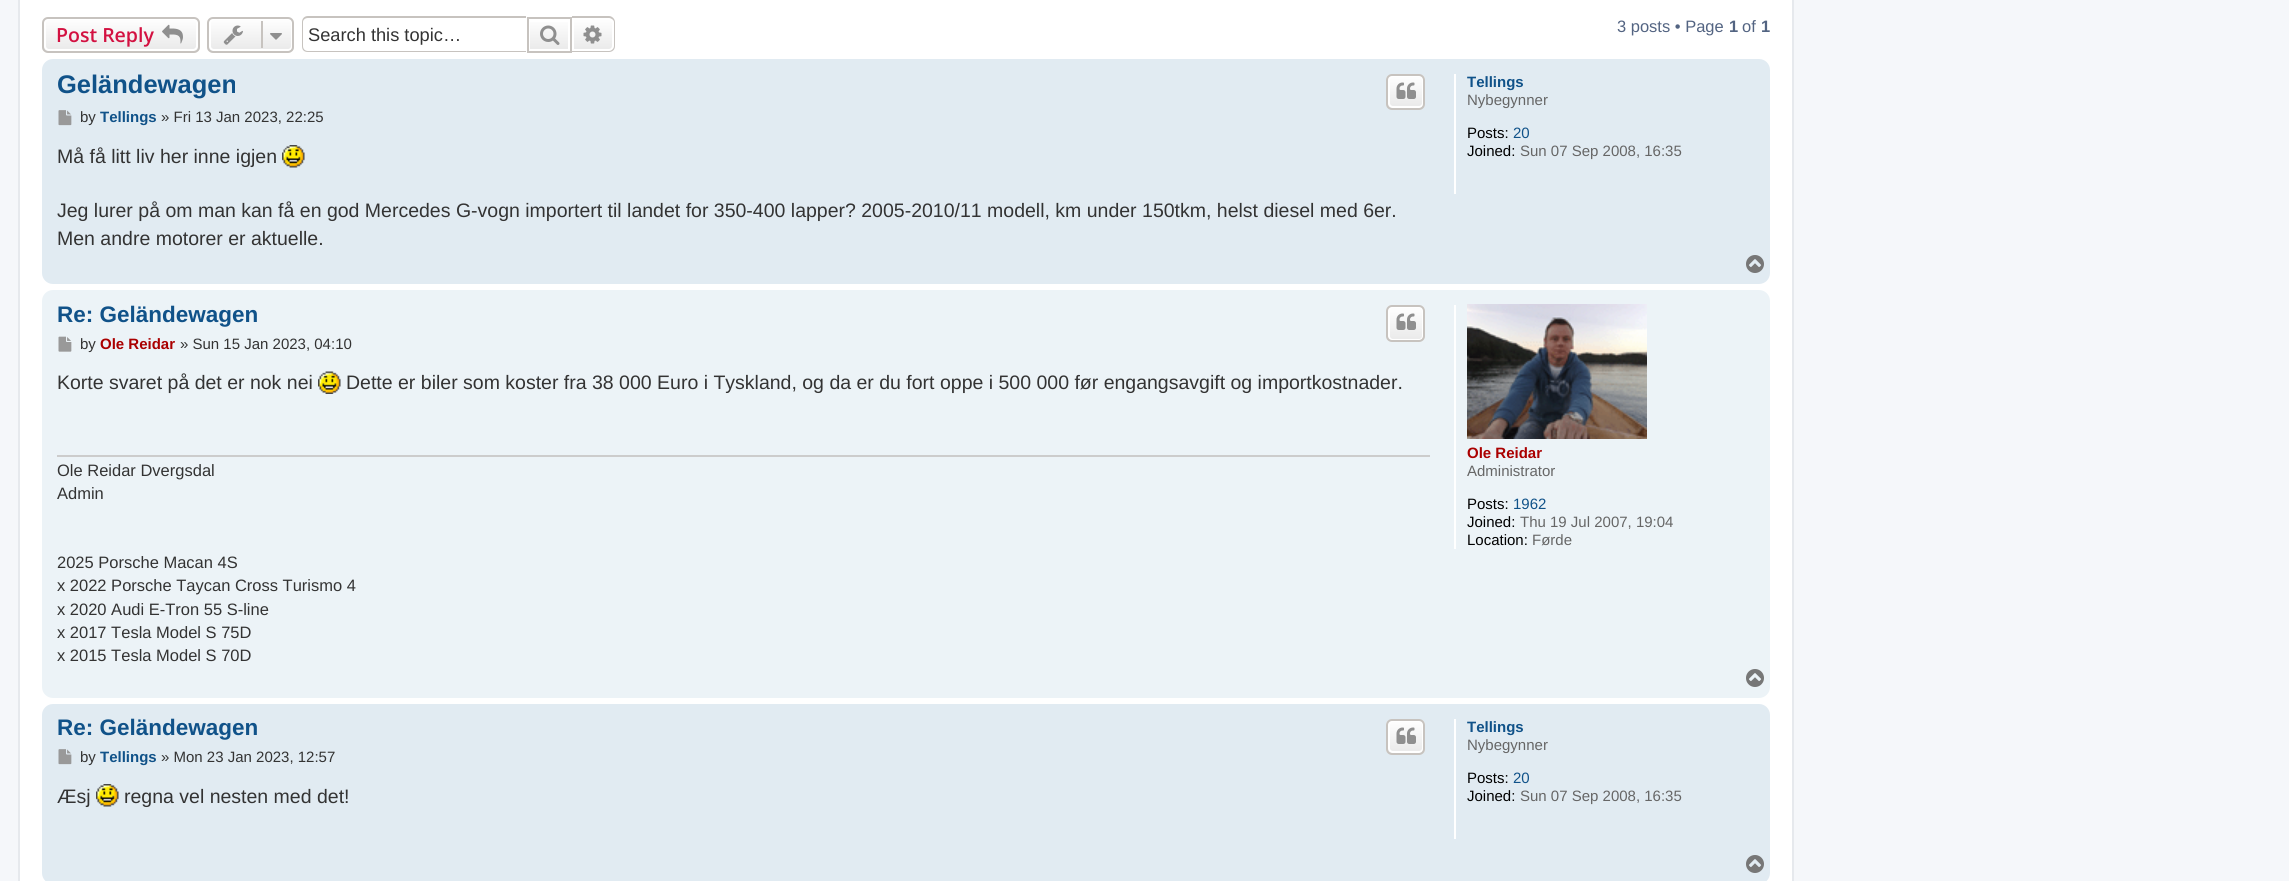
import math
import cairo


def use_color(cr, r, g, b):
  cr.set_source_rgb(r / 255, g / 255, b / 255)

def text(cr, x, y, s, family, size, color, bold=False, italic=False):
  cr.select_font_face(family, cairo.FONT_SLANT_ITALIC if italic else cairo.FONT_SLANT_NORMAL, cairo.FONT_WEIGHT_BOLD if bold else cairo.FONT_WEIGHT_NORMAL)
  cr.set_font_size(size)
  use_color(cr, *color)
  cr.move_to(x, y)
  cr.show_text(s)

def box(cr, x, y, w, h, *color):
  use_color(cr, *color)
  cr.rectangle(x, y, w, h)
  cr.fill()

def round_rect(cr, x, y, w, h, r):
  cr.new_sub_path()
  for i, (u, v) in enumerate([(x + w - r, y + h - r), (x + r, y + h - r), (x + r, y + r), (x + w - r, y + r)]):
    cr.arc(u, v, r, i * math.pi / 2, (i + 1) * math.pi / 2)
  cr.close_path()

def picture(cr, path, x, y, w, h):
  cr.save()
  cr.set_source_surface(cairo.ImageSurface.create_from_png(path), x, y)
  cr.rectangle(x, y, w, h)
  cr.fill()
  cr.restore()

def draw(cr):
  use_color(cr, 245, 247, 250)
  cr.paint()
  use_color(cr, 255, 255, 255)
  cr.rectangle(19, -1, 1774, 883)
  cr.fill_preserve()
  use_color(cr, 230, 233, 237)
  cr.stroke()
  cr.save()
  round_rect(cr, 42, 17, 158, 36, 6)
  cr.clip()
  gradient = cairo.LinearGradient(121, 18, 121, 51)
  gradient.add_color_stop_rgba(0, 1, 1, 1, 1)
  gradient.add_color_stop_rgba(1, 0.914, 0.914, 0.914, 1)
  cr.set_source(gradient)
  cr.rectangle(42, 18, 158, 33)
  cr.fill()
  cr.restore()
  round_rect(cr, 45, 19, 152, 31, 4)
  use_color(cr, 255, 255, 255)
  cr.stroke()
  round_rect(cr, 43, 18, 156, 34, 5)
  use_color(cr, 199, 195, 191)
  cr.stroke()
  picture(cr, "img_01.png", 162, 24, 21, 20)
  cr.save()
  round_rect(cr, 207, 17, 87, 36, 6)
  cr.clip()
  gradient = cairo.LinearGradient(251, 18, 251, 51)
  gradient.add_color_stop_rgba(0, 1, 1, 1, 1)
  gradient.add_color_stop_rgba(1, 0.914, 0.914, 0.914, 1)
  cr.set_source(gradient)
  cr.rectangle(207, 18, 87, 33)
  cr.fill()
  cr.restore()
  round_rect(cr, 210, 19, 82, 31, 4)
  use_color(cr, 255, 255, 255)
  cr.stroke()
  round_rect(cr, 208, 18, 85, 34, 5)
  use_color(cr, 199, 195, 191)
  cr.stroke()
  picture(cr, "img_02.png", 223, 25, 20, 20)
  box(cr, 261, 21, 2, 27, 199, 195, 191)
  picture(cr, "img_03.png", 270, 33, 12, 7)
  cr.set_fill_rule(cairo.FILL_RULE_EVEN_ODD)
  cr.new_path()
  cr.move_to(308, 16)
  cr.line_to(526, 16)
  cr.line_to(526, 52)
  cr.line_to(308, 52)
  cr.curve_to(304, 52, 302, 50, 302, 46)
  cr.line_to(302, 22)
  cr.curve_to(302, 19, 304, 16, 308, 16)
  cr.close_path()
  cr.move_to(308, 18)
  cr.line_to(526, 18)
  cr.line_to(526, 51)
  cr.line_to(308, 51)
  cr.curve_to(305, 51, 303, 49, 303, 46)
  cr.line_to(303, 22)
  cr.curve_to(303, 20, 305, 18, 308, 18)
  cr.close_path()
  cr.fill()
  gradient = cairo.LinearGradient(549, 18, 549, 51)
  gradient.add_color_stop_rgba(0, 1, 1, 1, 1)
  gradient.add_color_stop_rgba(1, 0.914, 0.914, 0.914, 1)
  cr.set_source(gradient)
  cr.rectangle(530, 22, 38, 27)
  cr.fill()
  cr.rectangle(528, 18, 43, 34)
  use_color(cr, 199, 195, 191)
  cr.stroke()
  picture(cr, "img_04.png", 540, 25, 20, 20)
  gradient = cairo.LinearGradient(593, 18, 593, 51)
  gradient.add_color_stop_rgba(0, 1, 1, 1, 1)
  gradient.add_color_stop_rgba(1, 0.914, 0.914, 0.914, 1)
  cr.set_source(gradient)
  cr.new_path()
  cr.move_to(573, 19)
  cr.line_to(609, 19)
  cr.curve_to(611, 19, 613, 21, 613, 23)
  cr.line_to(613, 46)
  cr.curve_to(613, 48, 611, 50, 609, 50)
  cr.line_to(573, 50)
  cr.close_path()
  cr.fill_preserve()
  use_color(cr, 255, 255, 255)
  cr.stroke()
  use_color(cr, 199, 195, 191)
  cr.new_path()
  cr.move_to(572, 16)
  cr.line_to(609, 16)
  cr.curve_to(612, 16, 615, 19, 615, 22)
  cr.line_to(615, 46)
  cr.curve_to(615, 50, 612, 52, 609, 52)
  cr.line_to(572, 52)
  cr.close_path()
  cr.move_to(572, 18)
  cr.line_to(609, 18)
  cr.curve_to(611, 18, 614, 20, 614, 22)
  cr.line_to(614, 46)
  cr.curve_to(614, 49, 611, 51, 609, 51)
  cr.line_to(572, 51)
  cr.close_path()
  cr.fill()
  picture(cr, "img_05.png", 583, 25, 19, 19)
  use_color(cr, 225, 235, 242)
  round_rect(cr, 42, 59, 1728, 225, 11)
  cr.fill()
  cr.save()
  cr.set_fill_rule(cairo.FILL_RULE_WINDING)
  round_rect(cr, 1386, 74, 39, 36, 6)
  cr.clip()
  gradient = cairo.LinearGradient(1406, 75, 1406, 108)
  gradient.add_color_stop_rgba(0, 1, 1, 1, 1)
  gradient.add_color_stop_rgba(1, 0.914, 0.914, 0.914, 1)
  cr.set_source(gradient)
  cr.rectangle(1386, 75, 39, 33)
  cr.fill()
  cr.restore()
  round_rect(cr, 1389, 76, 34, 31, 4)
  use_color(cr, 255, 255, 255)
  cr.stroke()
  round_rect(cr, 1387, 75, 37, 34, 5)
  use_color(cr, 199, 195, 191)
  cr.stroke()
  picture(cr, "img_06.png", 1396, 82, 20, 17)
  picture(cr, "img_07.png", 58, 110, 14, 16)
  picture(cr, "img_08.png", 282, 145, 23, 23)
  box(cr, 1454, 74, 2, 120, 255, 255, 255)
  picture(cr, "img_09.png", 1746, 255, 18, 18)
  use_color(cr, 236, 243, 247)
  round_rect(cr, 42, 290, 1728, 408, 11)
  cr.fill()
  cr.save()
  cr.set_fill_rule(cairo.FILL_RULE_WINDING)
  round_rect(cr, 1386, 305, 39, 37, 6)
  cr.clip()
  gradient = cairo.LinearGradient(1406, 306, 1406, 341)
  gradient.add_color_stop_rgba(0, 1, 1, 1, 1)
  gradient.add_color_stop_rgba(1, 0.914, 0.914, 0.914, 1)
  cr.set_source(gradient)
  cr.rectangle(1386, 306, 39, 35)
  cr.fill()
  cr.restore()
  round_rect(cr, 1389, 307, 34, 33, 4)
  use_color(cr, 255, 255, 255)
  cr.stroke()
  round_rect(cr, 1387, 306, 37, 35, 5)
  use_color(cr, 199, 195, 191)
  cr.stroke()
  picture(cr, "img_10.png", 1396, 313, 20, 17)
  picture(cr, "img_11.png", 58, 336, 14, 16)
  picture(cr, "img_12.png", 318, 371, 23, 23)
  box(cr, 57, 455, 1373, 2, 204, 204, 204)
  box(cr, 1454, 305, 2, 244, 255, 255, 255)
  picture(cr, "img_13.png", 1467, 304, 180, 135)
  picture(cr, "img_14.png", 1746, 669, 18, 18)
  use_color(cr, 225, 235, 242)
  round_rect(cr, 42, 704, 1728, 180, 11)
  cr.fill()
  cr.save()
  cr.set_fill_rule(cairo.FILL_RULE_WINDING)
  round_rect(cr, 1386, 719, 39, 36, 6)
  cr.clip()
  gradient = cairo.LinearGradient(1406, 720, 1406, 753)
  gradient.add_color_stop_rgba(0, 1, 1, 1, 1)
  gradient.add_color_stop_rgba(1, 0.914, 0.914, 0.914, 1)
  cr.set_source(gradient)
  cr.rectangle(1386, 720, 39, 33)
  cr.fill()
  cr.restore()
  round_rect(cr, 1389, 721, 34, 31, 4)
  use_color(cr, 255, 255, 255)
  cr.stroke()
  round_rect(cr, 1387, 720, 37, 34, 5)
  use_color(cr, 199, 195, 191)
  cr.stroke()
  picture(cr, "img_06.png", 1396, 727, 20, 17)
  picture(cr, "img_07.png", 58, 749, 14, 16)
  picture(cr, "img_15.png", 96, 784, 23, 23)
  box(cr, 1454, 719, 2, 120, 255, 255, 255)
  picture(cr, "img_09.png", 1746, 855, 18, 18)
  text(cr, 56, 42, "Post Reply", "Open Sans SemiBold", 19.5, (211, 17, 65))
  text(cr, 308, 41, "Search this topic…", "Liberation Sans", 18.25, (51, 51, 51))
  text(cr, 1617, 32, "3 posts • Page", "Liberation Sans", 16.5, (83, 100, 130))
  text(cr, 1729, 32, "1", "Liberation Sans", 16.5, (83, 100, 130), bold=True)
  text(cr, 1742, 32, "of", "Liberation Sans", 16.5, (83, 100, 130))
  text(cr, 1761, 32, "1", "Liberation Sans", 16.5, (83, 100, 130), bold=True)
  text(cr, 57, 93, "Geländewagen", "Liberation Sans", 25.5, (16, 82, 137), bold=True)
  text(cr, 80, 122, "by", "Liberation Sans", 15, (51, 51, 51))
  text(cr, 100, 122, "Tellings", "Liberation Sans", 15, (16, 82, 137), bold=True)
  text(cr, 161, 122, "» Fri 13 Jan 2023, 22:25", "Liberation Sans", 15, (51, 51, 51))
  text(cr, 57, 163, "Må få litt liv her inne igjen", "Liberation Sans", 19.5, (51, 51, 51))
  text(cr, 57, 217, "Jeg lurer på om man kan få en god Mercedes G-vogn importert til landet for 350-400 lapper? 2005-2010/11 modell, km under 150tkm, helst diesel med 6er.", "Liberation Sans", 19.5, (51, 51, 51))
  text(cr, 57, 245, "Men andre motorer er aktuelle.", "Liberation Sans", 19.5, (51, 51, 51))
  text(cr, 1467, 87, "Tellings", "Liberation Sans", 15, (16, 82, 137), bold=True)
  text(cr, 1467, 105, "Nybegynner", "Liberation Sans", 15, (102, 102, 102))
  text(cr, 1467, 138, "Posts:", "Liberation Sans", 15, (0, 0, 0))
  text(cr, 1513, 138, "20", "Liberation Sans", 15, (16, 82, 137))
  text(cr, 1467, 156, "Joined:", "Liberation Sans", 15, (0, 0, 0))
  text(cr, 1520, 156, "Sun 07 Sep 2008, 16:35", "Liberation Sans", 15, (102, 102, 102))
  text(cr, 57, 322, "Re: Geländewagen", "Liberation Sans", 22.5, (16, 82, 137), bold=True)
  text(cr, 80, 349, "by", "Liberation Sans", 15, (51, 51, 51))
  text(cr, 100, 349, "Ole Reidar", "Liberation Sans", 15, (170, 0, 0), bold=True)
  text(cr, 180, 349, "» Sun 15 Jan 2023, 04:10", "Liberation Sans", 15, (51, 51, 51))
  text(cr, 57, 389, "Korte svaret på det er nok nei", "Liberation Sans", 19.5, (51, 51, 51))
  text(cr, 346, 389, "Dette er biler som koster fra 38 000 Euro i Tyskland, og da er du fort oppe i 500 000 før engangsavgift og importkostnader.", "Liberation Sans", 19.5, (51, 51, 51))
  text(cr, 57, 476, "Ole Reidar Dvergsdal", "Liberation Sans", 16.5, (51, 51, 51))
  text(cr, 57, 499, "Admin", "Liberation Sans", 16.5, (51, 51, 51))
  text(cr, 57, 568, "2025 Porsche Macan 4S", "Liberation Sans", 16.5, (51, 51, 51))
  text(cr, 57, 591, "x 2022 Porsche Taycan Cross Turismo 4", "Liberation Sans", 16.5, (51, 51, 51))
  text(cr, 57, 615, "x 2020 Audi E-Tron 55 S-line", "Liberation Sans", 16.5, (51, 51, 51))
  text(cr, 57, 638, "x 2017 Tesla Model S 75D", "Liberation Sans", 16.5, (51, 51, 51))
  text(cr, 57, 661, "x 2015 Tesla Model S 70D", "Liberation Sans", 16.5, (51, 51, 51))
  text(cr, 1467, 458, "Ole Reidar", "Liberation Sans", 15, (170, 0, 0), bold=True)
  text(cr, 1467, 476, "Administrator", "Liberation Sans", 15, (102, 102, 102))
  text(cr, 1467, 509, "Posts:", "Liberation Sans", 15, (0, 0, 0))
  text(cr, 1513, 509, "1962", "Liberation Sans", 15, (16, 82, 137))
  text(cr, 1467, 527, "Joined:", "Liberation Sans", 15, (0, 0, 0))
  text(cr, 1520, 527, "Thu 19 Jul 2007, 19:04", "Liberation Sans", 15, (102, 102, 102))
  text(cr, 1467, 545, "Location:", "Liberation Sans", 15, (0, 0, 0))
  text(cr, 1532, 545, "Førde", "Liberation Sans", 15, (102, 102, 102))
  text(cr, 57, 735, "Re: Geländewagen", "Liberation Sans", 22.5, (16, 82, 137), bold=True)
  text(cr, 80, 762, "by", "Liberation Sans", 15, (51, 51, 51))
  text(cr, 100, 762, "Tellings", "Liberation Sans", 15, (16, 82, 137), bold=True)
  text(cr, 161, 762, "» Mon 23 Jan 2023, 12:57", "Liberation Sans", 15, (51, 51, 51))
  text(cr, 57, 803, "Æsj", "Liberation Sans", 19.5, (51, 51, 51))
  text(cr, 124, 803, "regna vel nesten med det!", "Liberation Sans", 19.5, (51, 51, 51))
  text(cr, 1467, 732, "Tellings", "Liberation Sans", 15, (16, 82, 137), bold=True)
  text(cr, 1467, 750, "Nybegynner", "Liberation Sans", 15, (102, 102, 102))
  text(cr, 1467, 783, "Posts:", "Liberation Sans", 15, (0, 0, 0))
  text(cr, 1513, 783, "20", "Liberation Sans", 15, (16, 82, 137))
  text(cr, 1467, 801, "Joined:", "Liberation Sans", 15, (0, 0, 0))
  text(cr, 1520, 801, "Sun 07 Sep 2008, 16:35", "Liberation Sans", 15, (102, 102, 102))


surface = cairo.ImageSurface(cairo.FORMAT_RGB24, 2289, 881)
cr = cairo.Context(surface)
options = cairo.FontOptions()
options.set_hint_metrics(cairo.HINT_METRICS_OFF)
options.set_hint_style(cairo.HINT_STYLE_NONE)
cr.set_font_options(options)
cr.set_miter_limit(4)
draw(cr)
surface.write_to_png("out.png")
